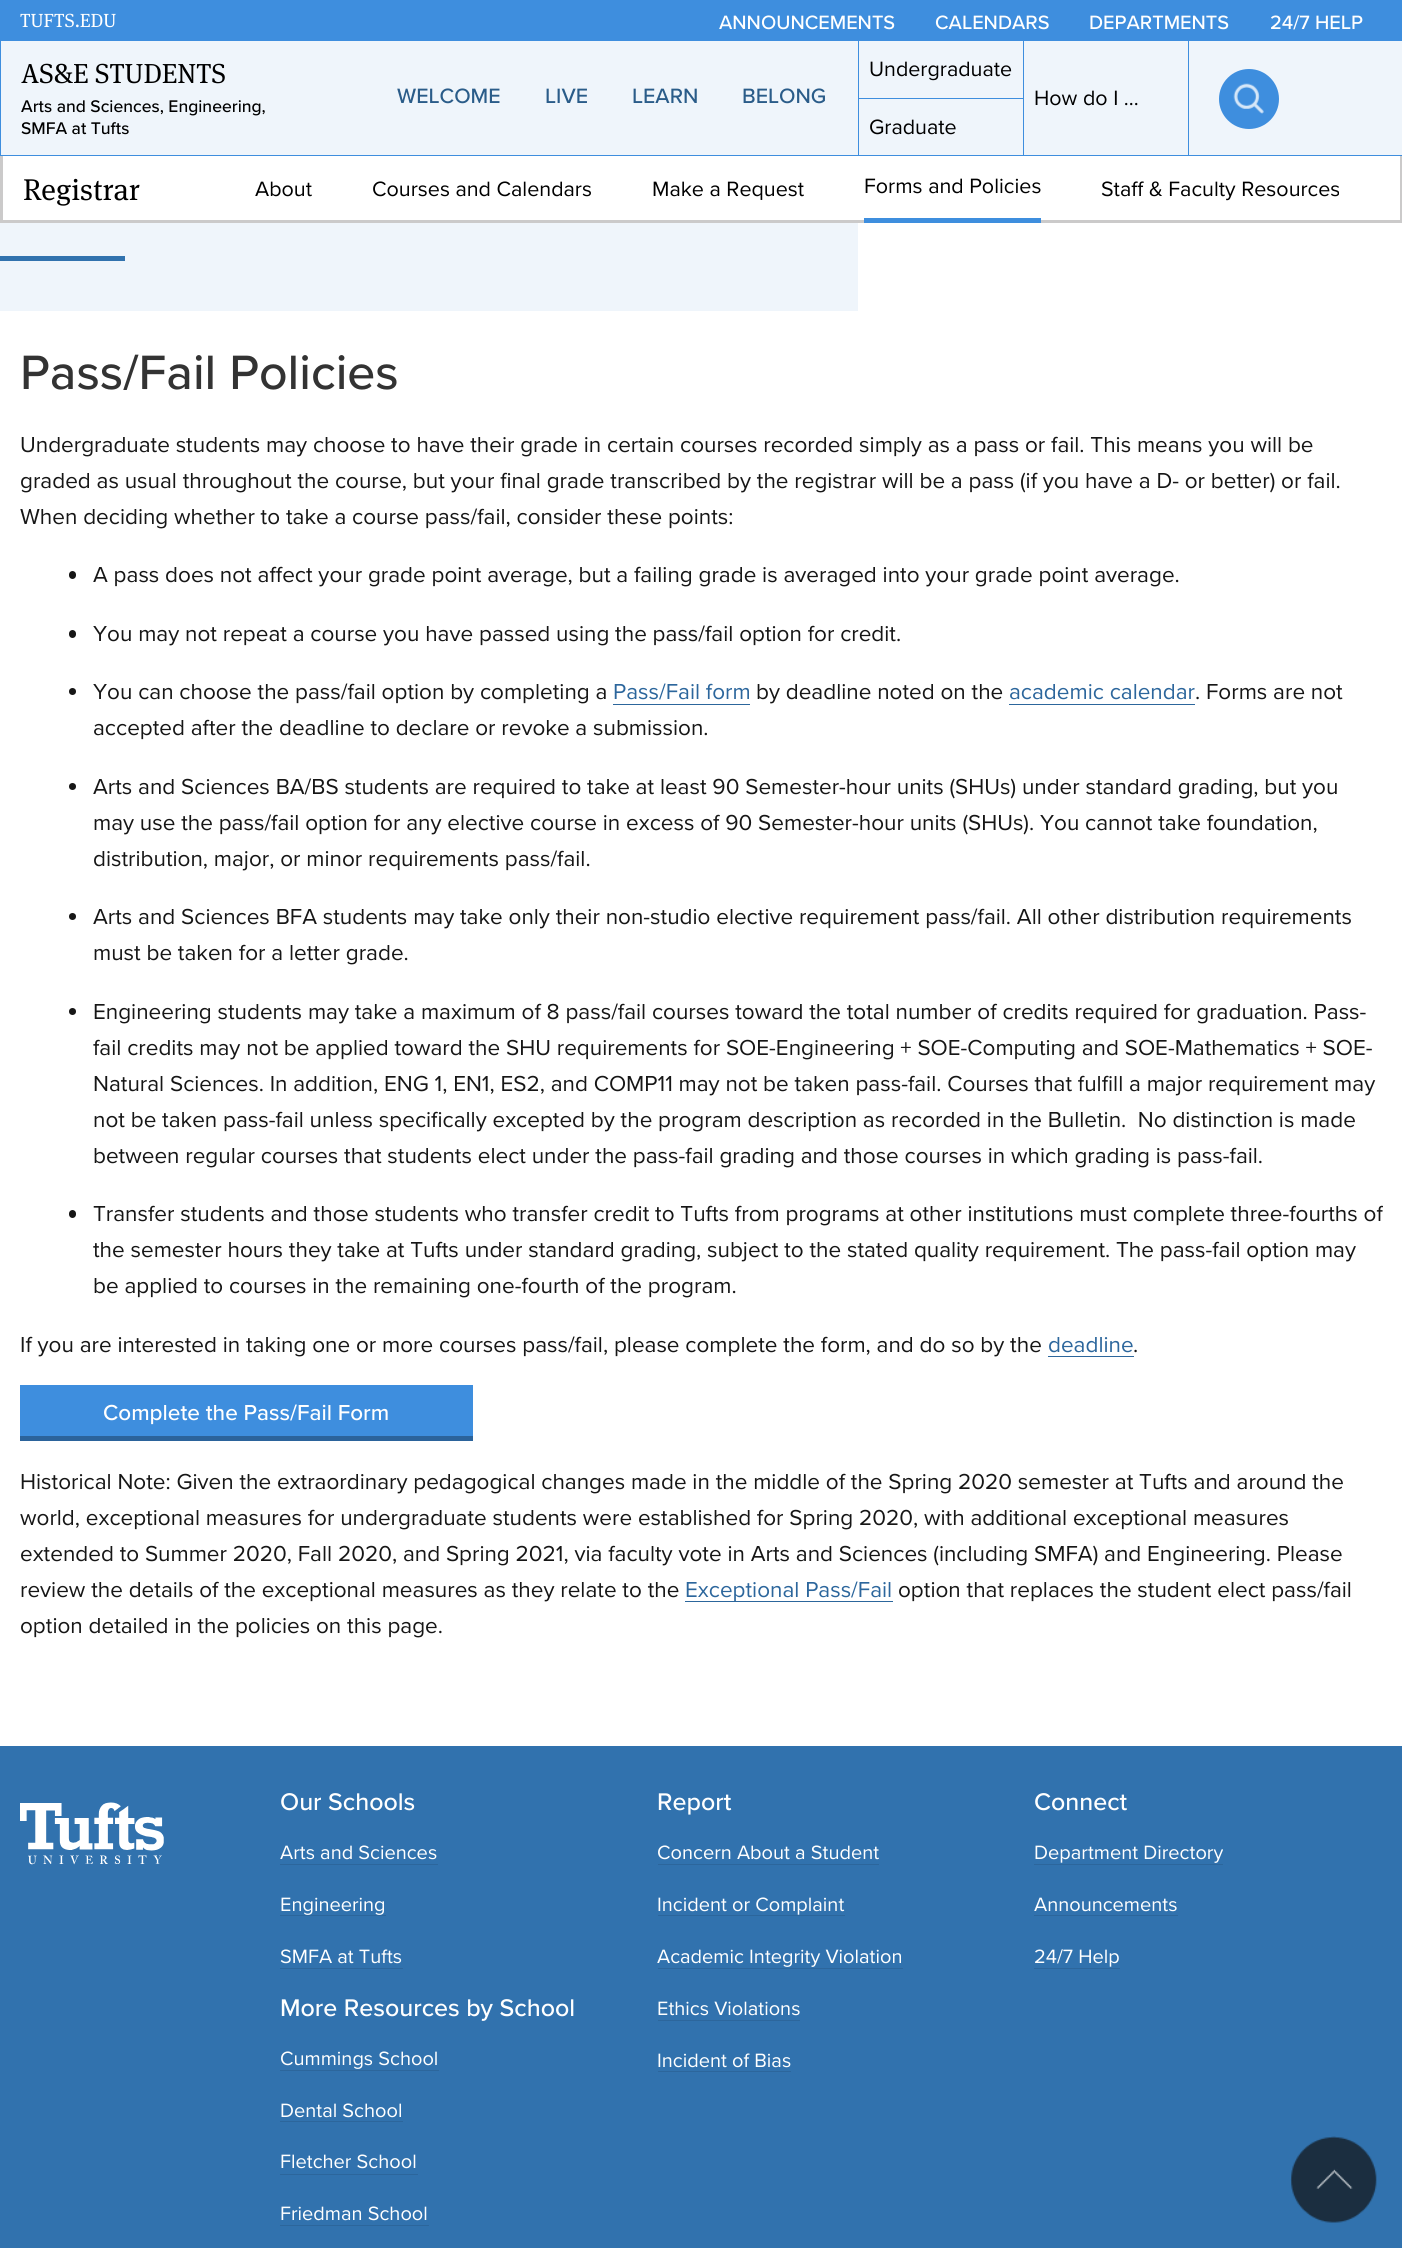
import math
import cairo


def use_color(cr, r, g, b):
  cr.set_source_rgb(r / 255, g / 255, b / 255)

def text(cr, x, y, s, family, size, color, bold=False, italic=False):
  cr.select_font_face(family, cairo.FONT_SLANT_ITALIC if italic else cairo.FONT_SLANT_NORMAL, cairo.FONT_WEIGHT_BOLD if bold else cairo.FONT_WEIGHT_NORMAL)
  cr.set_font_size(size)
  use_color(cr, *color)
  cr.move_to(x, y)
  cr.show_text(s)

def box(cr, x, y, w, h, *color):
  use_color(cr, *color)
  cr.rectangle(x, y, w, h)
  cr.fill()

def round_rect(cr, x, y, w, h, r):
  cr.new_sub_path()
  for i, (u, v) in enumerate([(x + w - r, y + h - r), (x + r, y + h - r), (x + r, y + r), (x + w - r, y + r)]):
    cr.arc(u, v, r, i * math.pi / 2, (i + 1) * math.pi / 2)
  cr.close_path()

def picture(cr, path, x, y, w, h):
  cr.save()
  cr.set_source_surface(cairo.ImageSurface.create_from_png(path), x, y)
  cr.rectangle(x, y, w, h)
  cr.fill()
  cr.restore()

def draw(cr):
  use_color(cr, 255, 255, 255)
  cr.paint()
  box(cr, 0, 0, 1402, 40, 62, 142, 222)
  use_color(cr, 239, 245, 251)
  cr.rectangle(0.5, 40.5, 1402, 115)
  cr.fill_preserve()
  use_color(cr, 62, 142, 222)
  cr.set_line_width(1)
  cr.stroke()
  box(cr, 1023, 41, 1, 114, 62, 142, 222)
  box(cr, 858, 98, 166, 1, 62, 142, 222)
  box(cr, 858, 41, 1, 114, 62, 142, 222)
  box(cr, 1188, 41, 1, 114, 62, 142, 222)
  cr.arc(1249, 99, 30, 0, 2 * math.pi)
  cr.fill()
  picture(cr, "img_01.png", 1233, 83, 31, 31)
  box(cr, 1400, 156, 2, 67, 203, 202, 202)
  box(cr, 0, 220, 1402, 3, 203, 202, 202)
  box(cr, 0, 156, 3, 67, 203, 202, 202)
  box(cr, 864, 218, 177, 5, 62, 142, 222)
  box(cr, 0, 223, 858, 88, 239, 245, 251)
  box(cr, 0, 256, 125, 5, 49, 114, 174)
  use_color(cr, 22, 22, 22)
  round_rect(cr, 69, 571, 7, 8, 3.5)
  cr.fill()
  round_rect(cr, 69, 630, 7, 8, 3.5)
  cr.fill()
  cr.arc(72.5, 691.5, 3.5, 0, 2 * math.pi)
  cr.fill()
  box(cr, 613, 704, 137, 1, 44, 102, 156)
  box(cr, 1009, 704, 186, 1, 44, 102, 156)
  use_color(cr, 22, 22, 22)
  cr.arc(72.5, 786.5, 3.5, 0, 2 * math.pi)
  cr.fill()
  cr.arc(72.5, 916.5, 3.5, 0, 2 * math.pi)
  cr.fill()
  cr.arc(72.5, 1011.5, 3.5, 0, 2 * math.pi)
  cr.fill()
  round_rect(cr, 69, 1210, 7, 8, 3.5)
  cr.fill()
  box(cr, 1048, 1356, 86, 1, 44, 102, 156)
  box(cr, 20, 1385, 453, 51, 62, 142, 222)
  box(cr, 20, 1436, 453, 5, 43, 99, 155)
  box(cr, 685, 1601, 208, 1, 44, 102, 156)
  box(cr, 0, 1746, 1402, 502, 49, 114, 174)
  picture(cr, "img_02.png", 20, 1802, 144, 63)
  box(cr, 280, 1864, 158, 1, 44, 102, 156)
  box(cr, 280, 1915, 106, 1, 44, 102, 156)
  box(cr, 280, 1968, 123, 1, 44, 102, 156)
  box(cr, 280, 2070, 159, 1, 44, 102, 156)
  box(cr, 280, 2121, 123, 1, 44, 102, 156)
  box(cr, 280, 2174, 138, 1, 44, 102, 156)
  box(cr, 280, 2225, 149, 1, 44, 102, 156)
  box(cr, 658, 1864, 221, 1, 44, 102, 156)
  box(cr, 658, 1915, 187, 1, 44, 102, 156)
  box(cr, 658, 1968, 245, 1, 44, 102, 156)
  box(cr, 658, 2020, 142, 1, 44, 102, 156)
  box(cr, 658, 2071, 133, 1, 44, 102, 156)
  box(cr, 1034, 1864, 189, 1, 44, 102, 156)
  box(cr, 1034, 1915, 144, 1, 44, 102, 156)
  box(cr, 1034, 1968, 86, 1, 44, 102, 156)
  picture(cr, "img_03.png", 1290, 2136, 87, 87)
  text(cr, 20, 27, "TUFTS.EDU", "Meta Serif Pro", 19, (255, 255, 255))
  text(cr, 719, 29, "ANNOUNCEMENTS", "Proxima Nova Medium", 20, (255, 255, 255))
  text(cr, 935, 29, "CALENDARS", "Proxima Nova Medium", 20, (255, 255, 255))
  text(cr, 1089, 29, "DEPARTMENTS", "Proxima Nova Medium", 20, (255, 255, 255))
  text(cr, 1270, 29, "24/7 HELP", "Proxima Nova Medium", 20, (255, 255, 255))
  text(cr, 21, 83, "AS&E STUDENTS", "Meta Serif Pro", 27.5, (0, 0, 0))
  text(cr, 21, 112, "Arts and Sciences, Engineering,", "Proxima Nova Medium", 17.5, (0, 0, 0))
  text(cr, 21, 134, "SMFA at Tufts", "Proxima Nova Medium", 17.5, (0, 0, 0))
  text(cr, 397, 103, "WELCOME", "Proxima Nova Medium", 21.5, (42, 92, 137))
  text(cr, 545, 103, "LIVE", "Proxima Nova Medium", 21.5, (42, 92, 137))
  text(cr, 632, 103, "LEARN", "Proxima Nova Medium", 21.5, (42, 92, 137))
  text(cr, 742, 103, "BELONG", "Proxima Nova Medium", 21.5, (42, 92, 137))
  text(cr, 869, 76, "Undergraduate", "Proxima Nova", 21.5, (0, 0, 0))
  text(cr, 1034, 105, "How do I ...", "Proxima Nova", 21.5, (0, 0, 0))
  text(cr, 869, 134, "Graduate", "Proxima Nova", 21.5, (0, 0, 0))
  text(cr, 23, 200, "Registrar", "Meta Serif Pro", 30, (0, 0, 0))
  text(cr, 255, 196, "About", "Proxima Nova", 21.5, (0, 0, 0))
  text(cr, 372, 196, "Courses and Calendars", "Proxima Nova", 21.5, (0, 0, 0))
  text(cr, 652, 196, "Make a Request", "Proxima Nova", 21.5, (0, 0, 0))
  text(cr, 864, 193, "Forms and Policies", "Proxima Nova", 21.5, (0, 0, 0))
  text(cr, 1101, 196, "Staff & Faculty Resources", "Proxima Nova", 21.5, (0, 0, 0))
  text(cr, 20, 389, "Pass/Fail Policies", "Proxima Nova Medium", 50, (51, 51, 51))
  text(cr, 20, 452, "Undergraduate students may choose to have their grade in certain courses recorded simply as a pass or fail. This means you will be", "Proxima Nova", 22.5, (22, 22, 22))
  text(cr, 20, 488, "graded as usual throughout the course, but your final grade transcribed by the registrar will be a pass (if you have a D- or better) or fail.", "Proxima Nova", 22.5, (22, 22, 22))
  text(cr, 20, 524, "When deciding whether to take a course pass/fail, consider these points:", "Proxima Nova", 22.5, (22, 22, 22))
  text(cr, 93, 582, "A pass does not affect your grade point average, but a failing grade is averaged into your grade point average.", "Proxima Nova", 22.5, (22, 22, 22))
  text(cr, 93, 641, "You may not repeat a course you have passed using the pass/fail option for credit.", "Proxima Nova", 22.5, (22, 22, 22))
  text(cr, 93, 699, "You can choose the pass/fail option by completing a", "Proxima Nova", 22.5, (22, 22, 22))
  text(cr, 613, 699, "Pass/Fail form", "Proxima Nova", 22.5, (44, 102, 156))
  text(cr, 756, 699, "by deadline noted on the", "Proxima Nova", 22.5, (22, 22, 22))
  text(cr, 1009, 699, "academic calendar", "Proxima Nova", 22.5, (44, 102, 156))
  text(cr, 1195, 699, ". Forms are not", "Proxima Nova", 22.5, (22, 22, 22))
  text(cr, 93, 735, "accepted after the deadline to declare or revoke a submission.", "Proxima Nova", 22.5, (22, 22, 22))
  text(cr, 93, 794, "Arts and Sciences BA/BS students are required to take at least 90 Semester-hour units (SHUs) under standard grading, but you", "Proxima Nova", 22.5, (22, 22, 22))
  text(cr, 93, 830, "may use the pass/fail option for any elective course in excess of 90 Semester-hour units (SHUs). You cannot take foundation,", "Proxima Nova", 22.5, (22, 22, 22))
  text(cr, 93, 866, "distribution, major, or minor requirements pass/fail.", "Proxima Nova", 22.5, (22, 22, 22))
  text(cr, 93, 924, "Arts and Sciences BFA students may take only their non-studio elective requirement pass/fail. All other distribution requirements", "Proxima Nova", 22.5, (22, 22, 22))
  text(cr, 93, 960, "must be taken for a letter grade.", "Proxima Nova", 22.5, (22, 22, 22))
  text(cr, 93, 1019, "Engineering students may take a maximum of 8 pass/fail courses toward the total number of credits required for graduation. Pass-", "Proxima Nova", 22.5, (22, 22, 22))
  text(cr, 93, 1055, "fail credits may not be applied toward the SHU requirements for SOE-Engineering + SOE-Computing and SOE-Mathematics + SOE-", "Proxima Nova", 22.5, (22, 22, 22))
  text(cr, 93, 1091, "Natural Sciences. In addition, ENG 1, EN1, ES2, and COMP11 may not be taken pass-fail. Courses that fulfill a major requirement may", "Proxima Nova", 22.5, (22, 22, 22))
  text(cr, 93, 1127, "not be taken pass-fail unless specifically excepted by the program description as recorded in the Bulletin.  No distinction is made", "Proxima Nova", 22.5, (22, 22, 22))
  text(cr, 93, 1163, "between regular courses that students elect under the pass-fail grading and those courses in which grading is pass-fail.", "Proxima Nova", 22.5, (22, 22, 22))
  text(cr, 93, 1221, "Transfer students and those students who transfer credit to Tufts from programs at other institutions must complete three-fourths of", "Proxima Nova", 22.5, (22, 22, 22))
  text(cr, 93, 1257, "the semester hours they take at Tufts under standard grading, subject to the stated quality requirement. The pass-fail option may", "Proxima Nova", 22.5, (22, 22, 22))
  text(cr, 93, 1293, "be applied to courses in the remaining one-fourth of the program.", "Proxima Nova", 22.5, (22, 22, 22))
  text(cr, 20, 1352, "If you are interested in taking one or more courses pass/fail, please complete the form, and do so by the", "Proxima Nova", 22.5, (22, 22, 22))
  text(cr, 1048, 1352, "deadline", "Proxima Nova", 22.5, (44, 102, 156))
  text(cr, 1133, 1352, ".", "Proxima Nova", 22.5, (22, 22, 22))
  text(cr, 103, 1420, "Complete the Pass/Fail Form", "Proxima Nova Medium", 22.5, (255, 255, 255))
  text(cr, 20, 1489, "Historical Note: Given the extraordinary pedagogical changes made in the middle of the Spring 2020 semester at Tufts and around the", "Proxima Nova", 22.5, (22, 22, 22))
  text(cr, 20, 1525, "world, exceptional measures for undergraduate students were established for Spring 2020, with additional exceptional measures", "Proxima Nova", 22.5, (22, 22, 22))
  text(cr, 20, 1561, "extended to Summer 2020, Fall 2020, and Spring 2021, via faculty vote in Arts and Sciences (including SMFA) and Engineering. Please", "Proxima Nova", 22.5, (22, 22, 22))
  text(cr, 20, 1597, "review the details of the exceptional measures as they relate to the", "Proxima Nova", 22.5, (22, 22, 22))
  text(cr, 685, 1597, "Exceptional Pass/Fail", "Proxima Nova", 22.5, (44, 102, 156))
  text(cr, 898, 1597, "option that replaces the student elect pass/fail", "Proxima Nova", 22.5, (22, 22, 22))
  text(cr, 20, 1633, "option detailed in the policies on this page.", "Proxima Nova", 22.5, (22, 22, 22))
  text(cr, 280, 1810, "Our Schools", "Proxima Nova Medium", 25, (255, 255, 255))
  text(cr, 280, 1859, "Arts and Sciences", "Proxima Nova", 20, (255, 255, 255))
  text(cr, 280, 1911, "Engineering", "Proxima Nova", 20, (255, 255, 255))
  text(cr, 280, 1963, "SMFA at Tufts", "Proxima Nova", 20, (255, 255, 255))
  text(cr, 280, 2016, "More Resources by School", "Proxima Nova Medium", 25, (255, 255, 255))
  text(cr, 280, 2065, "Cummings School", "Proxima Nova", 20, (255, 255, 255))
  text(cr, 280, 2117, "Dental School", "Proxima Nova", 20, (255, 255, 255))
  text(cr, 280, 2168, "Fletcher School", "Proxima Nova", 20, (255, 255, 255))
  text(cr, 280, 2220, "Friedman School", "Proxima Nova", 20, (255, 255, 255))
  text(cr, 657, 1810, "Report", "Proxima Nova Medium", 25, (255, 255, 255))
  text(cr, 657, 1859, "Concern About a Student", "Proxima Nova", 20, (255, 255, 255))
  text(cr, 657, 1911, "Incident or Complaint", "Proxima Nova", 20, (255, 255, 255))
  text(cr, 657, 1963, "Academic Integrity Violation", "Proxima Nova", 20, (255, 255, 255))
  text(cr, 657, 2015, "Ethics Violations", "Proxima Nova", 20, (255, 255, 255))
  text(cr, 657, 2067, "Incident of Bias", "Proxima Nova", 20, (255, 255, 255))
  text(cr, 1034, 1810, "Connect", "Proxima Nova Medium", 25, (255, 255, 255))
  text(cr, 1034, 1859, "Department Directory", "Proxima Nova", 20, (255, 255, 255))
  text(cr, 1034, 1911, "Announcements", "Proxima Nova", 20, (255, 255, 255))
  text(cr, 1034, 1963, "24/7 Help", "Proxima Nova", 20, (255, 255, 255))


surface = cairo.ImageSurface(cairo.FORMAT_RGB24, 1402, 2248)
cr = cairo.Context(surface)
options = cairo.FontOptions()
options.set_hint_metrics(cairo.HINT_METRICS_OFF)
options.set_hint_style(cairo.HINT_STYLE_NONE)
cr.set_font_options(options)
cr.set_miter_limit(4)
draw(cr)
surface.write_to_png("out.png")
